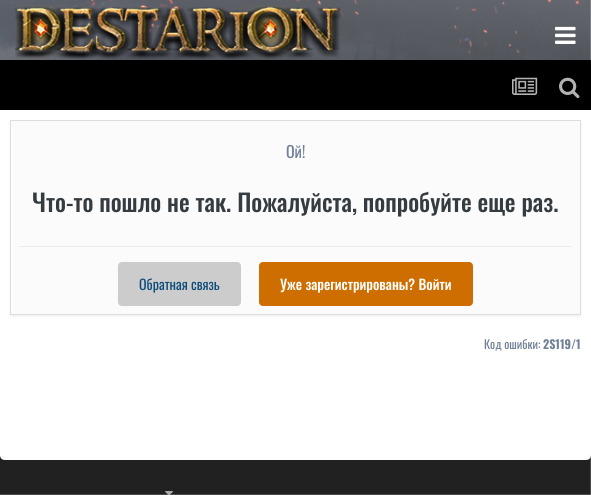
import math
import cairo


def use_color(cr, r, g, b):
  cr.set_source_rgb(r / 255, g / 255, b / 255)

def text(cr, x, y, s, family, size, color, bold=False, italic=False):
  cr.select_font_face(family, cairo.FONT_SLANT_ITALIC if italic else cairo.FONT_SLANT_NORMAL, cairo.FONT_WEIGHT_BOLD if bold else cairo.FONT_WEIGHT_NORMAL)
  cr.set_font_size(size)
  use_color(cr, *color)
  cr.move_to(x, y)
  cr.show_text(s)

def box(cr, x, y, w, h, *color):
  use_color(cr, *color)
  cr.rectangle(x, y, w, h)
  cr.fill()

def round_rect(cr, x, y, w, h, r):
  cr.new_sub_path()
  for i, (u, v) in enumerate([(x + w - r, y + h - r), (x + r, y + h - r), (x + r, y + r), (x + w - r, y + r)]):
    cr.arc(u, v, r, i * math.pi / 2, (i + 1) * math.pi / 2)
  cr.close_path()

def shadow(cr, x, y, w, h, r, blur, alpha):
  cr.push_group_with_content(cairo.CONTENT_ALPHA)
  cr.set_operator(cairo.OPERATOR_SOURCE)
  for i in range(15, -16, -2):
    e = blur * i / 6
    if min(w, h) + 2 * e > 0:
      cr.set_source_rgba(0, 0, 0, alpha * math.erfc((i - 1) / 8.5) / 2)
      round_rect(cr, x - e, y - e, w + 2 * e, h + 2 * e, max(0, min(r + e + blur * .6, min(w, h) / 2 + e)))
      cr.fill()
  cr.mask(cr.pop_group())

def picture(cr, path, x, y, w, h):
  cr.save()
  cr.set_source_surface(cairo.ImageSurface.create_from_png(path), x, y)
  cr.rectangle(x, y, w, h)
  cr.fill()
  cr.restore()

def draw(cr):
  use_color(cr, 255, 255, 255)
  cr.paint()
  picture(cr, "img_01.png", 0, 0, 591, 495)
  picture(cr, "img_02.png", 15, 5, 326, 55)
  picture(cr, "img_03.png", 555, 26, 21, 18)
  box(cr, 0, 60, 591, 50, 0, 0, 0)
  picture(cr, "img_04.png", 512, 77, 26, 18)
  picture(cr, "img_05.png", 559, 77, 21, 22)
  use_color(cr, 255, 255, 255)
  cr.new_path()
  cr.move_to(0, 110)
  cr.line_to(591, 110)
  cr.line_to(591, 455)
  cr.curve_to(591, 458, 589, 460, 586, 460)
  cr.line_to(5, 460)
  cr.curve_to(2, 460, 0, 458, 0, 455)
  cr.close_path()
  cr.fill()
  use_color(cr, 54, 53, 51)
  shadow(cr, 11, 123, 569, 193, 0, 2, 0.1)
  box(cr, 11, 122, 569, 192, 251, 251, 251)
  cr.rectangle(10.5, 120.5, 570, 194)
  use_color(cr, 221, 221, 221)
  cr.set_line_width(1)
  cr.stroke()
  box(cr, 19, 246, 553, 1, 235, 236, 236)
  use_color(cr, 204, 204, 204)
  round_rect(cr, 118, 262, 123, 44, 4)
  cr.fill()
  use_color(cr, 207, 110, 0)
  round_rect(cr, 259, 262, 214, 44, 4)
  cr.fill()
  picture(cr, "img_06.png", 165, 491, 8, 4)
  text(cr, 286, 158, "Ой!", "Oswald", 16, (113, 128, 150))
  text(cr, 32, 212, "Что-то пошло не так. Пожалуйста, попробуйте еще раз.", "Oswald Medium", 24, (53, 60, 65))
  text(cr, 139, 290, "Обратная связь", "Oswald", 14, (14, 76, 121))
  text(cr, 280, 290, "Уже зарегистрированы? Войти", "Oswald Medium", 14, (255, 255, 255))
  text(cr, 484, 349, "Код ошибки:", "Oswald", 12, (113, 128, 150))
  text(cr, 543, 349, "2S119/1", "Oswald", 12, (113, 128, 150), bold=True)


surface = cairo.ImageSurface(cairo.FORMAT_RGB24, 591, 495)
cr = cairo.Context(surface)
options = cairo.FontOptions()
options.set_hint_metrics(cairo.HINT_METRICS_OFF)
options.set_hint_style(cairo.HINT_STYLE_NONE)
cr.set_font_options(options)
cr.set_miter_limit(4)
draw(cr)
surface.write_to_png("out.png")
